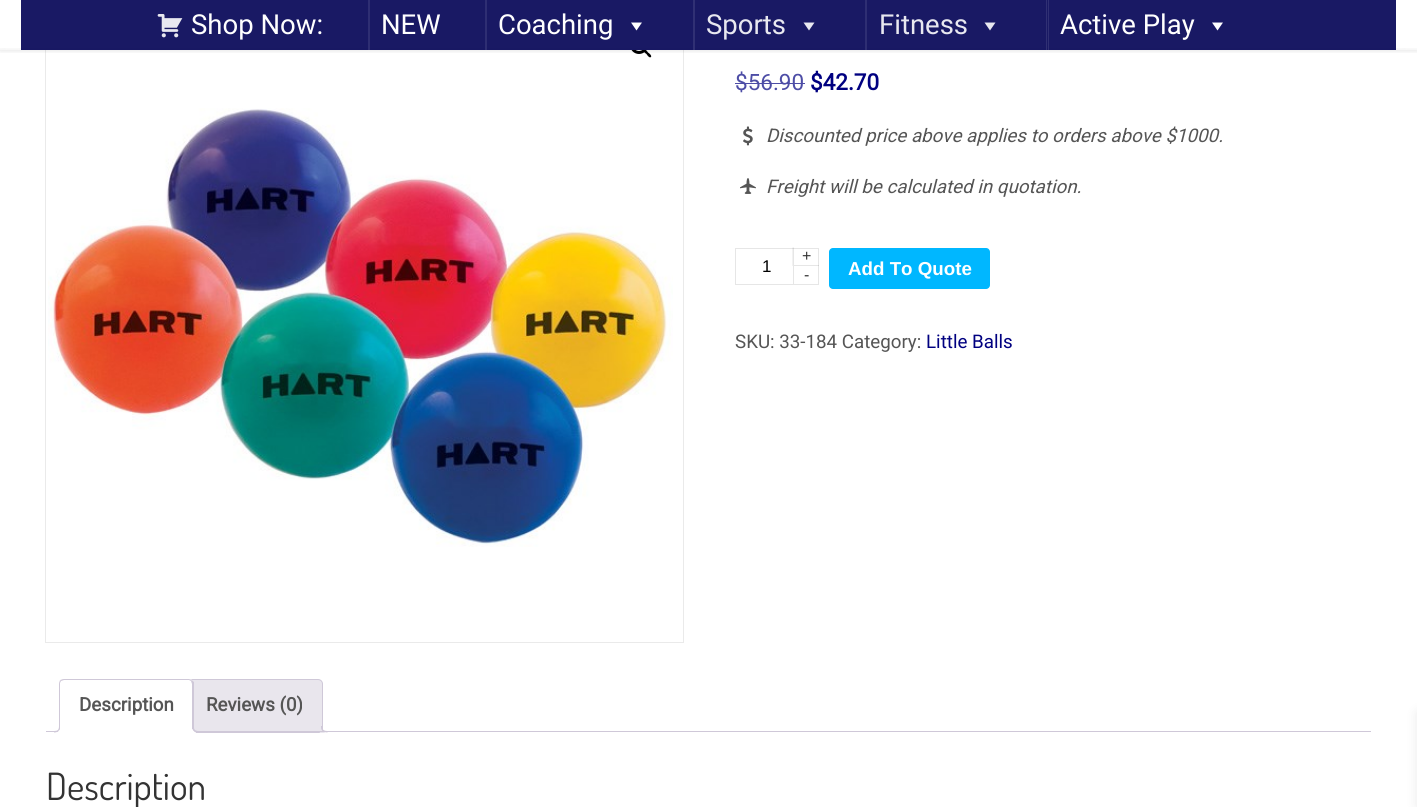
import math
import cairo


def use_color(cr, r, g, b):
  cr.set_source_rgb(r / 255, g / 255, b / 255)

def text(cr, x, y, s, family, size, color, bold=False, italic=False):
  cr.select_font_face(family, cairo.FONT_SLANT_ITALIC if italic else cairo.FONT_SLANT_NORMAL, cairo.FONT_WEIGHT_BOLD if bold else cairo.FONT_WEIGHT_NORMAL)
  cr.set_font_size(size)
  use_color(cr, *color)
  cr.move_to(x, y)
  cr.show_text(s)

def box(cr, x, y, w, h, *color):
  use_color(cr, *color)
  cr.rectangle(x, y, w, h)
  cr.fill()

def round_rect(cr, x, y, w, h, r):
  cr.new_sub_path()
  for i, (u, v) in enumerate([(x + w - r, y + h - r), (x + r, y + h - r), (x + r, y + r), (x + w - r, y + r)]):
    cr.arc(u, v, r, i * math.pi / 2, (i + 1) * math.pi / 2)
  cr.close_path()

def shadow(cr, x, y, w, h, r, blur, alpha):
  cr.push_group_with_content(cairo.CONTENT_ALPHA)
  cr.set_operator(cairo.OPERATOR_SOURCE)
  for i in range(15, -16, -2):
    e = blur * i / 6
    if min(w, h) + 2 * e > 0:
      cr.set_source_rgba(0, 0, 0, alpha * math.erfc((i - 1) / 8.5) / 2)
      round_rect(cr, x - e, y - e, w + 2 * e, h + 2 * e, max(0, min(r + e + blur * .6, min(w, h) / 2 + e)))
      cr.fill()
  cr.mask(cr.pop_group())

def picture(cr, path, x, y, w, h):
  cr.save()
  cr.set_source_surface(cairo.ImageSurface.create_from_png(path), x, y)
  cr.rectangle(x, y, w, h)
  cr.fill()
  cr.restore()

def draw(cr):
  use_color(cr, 255, 255, 255)
  cr.paint()
  cr.rectangle(45.5, 5.5, 638, 637)
  use_color(cr, 234, 234, 234)
  cr.set_line_width(1)
  cr.stroke()
  cr.arc(639, 45, 7.5, 0, 2 * math.pi)
  use_color(cr, 0, 0, 0)
  cr.set_line_width(3)
  cr.stroke()
  cr.new_path()
  cr.move_to(643.5, 50)
  cr.curve_to(645, 48.5, 647.5, 51.5, 648, 52.5)
  cr.curve_to(649, 53, 652, 55.5, 651, 57)
  cr.curve_to(649.5, 58.5, 647, 55, 646.5, 54)
  cr.curve_to(645.5, 53.5, 642.5, 51, 643.5, 50)
  cr.close_path()
  cr.fill()
  cr.set_source_rgba(1, 1, 1, 0.9)
  cr.rectangle(45, 5, 639, 45)
  cr.fill()
  cr.save()
  cr.rectangle(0, 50, 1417, 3)
  cr.clip()
  use_color(cr, 0, 0, 0)
  shadow(cr, 0, 0, 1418, 50, 0, 3, 0.14)
  cr.restore()
  cr.rectangle(630, 36, 18, 14)
  cr.fill()
  picture(cr, "img_02.png", 0, 48, 1417, 2)
  cr.set_source_rgba(0, 0, 0.329, 0.9)
  cr.rectangle(21, 0, 1375, 50)
  cr.fill()
  picture(cr, "img_01.png", 157, 14, 26, 24)
  box(cr, 368, 0, 2, 50, 46, 46, 115)
  box(cr, 485, 0, 2, 50, 46, 46, 115)
  use_color(cr, 255, 255, 255)
  cr.new_path()
  cr.move_to(642, 22.5)
  cr.line_to(636.5, 30.5)
  cr.line_to(631, 22.5)
  cr.close_path()
  cr.fill()
  box(cr, 693, 0, 2, 50, 48, 48, 116)
  use_color(cr, 232, 232, 240)
  cr.new_path()
  cr.move_to(814.5, 22.5)
  cr.line_to(809, 30.5)
  cr.line_to(803.5, 22.5)
  cr.close_path()
  cr.fill()
  box(cr, 865, 0, 2, 50, 46, 46, 115)
  use_color(cr, 232, 232, 240)
  cr.new_path()
  cr.move_to(995.5, 22.5)
  cr.line_to(990, 30.5)
  cr.line_to(984.5, 22.5)
  cr.close_path()
  cr.fill()
  box(cr, 1048, 0, 1, 50, 48, 48, 116)
  box(cr, 1046, 0, 1, 50, 48, 48, 116)
  use_color(cr, 255, 255, 255)
  cr.new_path()
  cr.move_to(1223, 22.5)
  cr.line_to(1217.5, 30.5)
  cr.line_to(1212, 22.5)
  cr.close_path()
  cr.fill()
  picture(cr, "img_03.png", 48, 108, 625, 439)
  box(cr, 735, 83, 70, 1, 77, 77, 166)
  picture(cr, "img_04.png", 743, 126, 10, 20)
  picture(cr, "img_05.png", 740, 178, 16, 16)
  cr.rectangle(735.5, 248.5, 83, 36)
  use_color(cr, 230, 230, 230)
  cr.set_line_width(1)
  cr.stroke()
  cr.set_source_rgba(0, 0, 0, 0.1)
  cr.new_path()
  cr.move_to(819, 266)
  cr.line_to(792.5, 266)
  cr.line_to(794, 265)
  cr.line_to(819, 265)
  cr.close_path()
  cr.fill()
  cr.new_path()
  cr.move_to(792.5, 266)
  cr.line_to(792.5, 247.5)
  cr.line_to(794, 247.5)
  cr.line_to(794, 265)
  cr.close_path()
  cr.fill()
  box(cr, 793, 266, 1, 18, 230, 230, 230)
  use_color(cr, 0, 183, 255)
  round_rect(cr, 829, 248, 161, 41, 4)
  cr.fill()
  use_color(cr, 233, 230, 237)
  cr.new_path()
  cr.move_to(191, 679.5)
  cr.line_to(318, 679.5)
  cr.curve_to(320.5, 679.5, 322.5, 681.5, 322.5, 684)
  cr.line_to(322.5, 732.5)
  cr.line_to(186.5, 732.5)
  cr.line_to(186.5, 684)
  cr.curve_to(186.5, 681.5, 188.5, 679.5, 191, 679.5)
  cr.close_path()
  cr.fill_preserve()
  use_color(cr, 207, 200, 216)
  cr.stroke()
  cr.save()
  cr.rectangle(46, 679, 1325, 54)
  cr.clip()
  use_color(cr, 233, 230, 237)
  cr.new_path()
  cr.move_to(319, 729)
  cr.curve_to(319, 733, 321, 735, 325, 735)
  cr.line_to(325, 732.5)
  cr.curve_to(323.5, 732, 322, 730.5, 321.5, 729)
  cr.close_path()
  cr.fill()
  cr.restore()
  cr.set_fill_rule(cairo.FILL_RULE_EVEN_ODD)
  cr.new_path()
  cr.move_to(321, 726)
  cr.line_to(327.5, 726)
  cr.line_to(327.5, 732.5)
  cr.curve_to(324.5, 732.5, 321, 731, 321, 727.5)
  cr.close_path()
  cr.move_to(322.5, 726)
  cr.line_to(327.5, 726)
  cr.line_to(327.5, 731)
  cr.curve_to(325, 731, 322.5, 730.5, 322.5, 727.5)
  cr.close_path()
  cr.fill()
  box(cr, 46, 731, 1325, 1, 207, 200, 216)
  use_color(cr, 255, 255, 255)
  cr.new_path()
  cr.move_to(64, 679)
  cr.line_to(189, 679)
  cr.curve_to(192, 679, 194, 681, 194, 684)
  cr.line_to(194, 733)
  cr.line_to(59, 733)
  cr.line_to(59, 684)
  cr.curve_to(59, 681, 61, 679, 64, 679)
  cr.close_path()
  cr.fill()
  use_color(cr, 207, 200, 216)
  cr.set_fill_rule(cairo.FILL_RULE_WINDING)
  cr.new_path()
  cr.move_to(64, 679)
  cr.curve_to(62, 679, 61, 680, 60, 680)
  cr.line_to(61, 681)
  cr.line_to(64, 680)
  cr.line_to(189, 680)
  cr.line_to(191, 681)
  cr.line_to(192, 680)
  cr.line_to(189, 679)
  cr.close_path()
  cr.fill()
  cr.new_path()
  cr.move_to(192, 680)
  cr.line_to(194, 682)
  cr.line_to(194, 732)
  cr.line_to(192, 731)
  cr.line_to(192, 684)
  cr.line_to(191, 681)
  cr.close_path()
  cr.fill()
  use_color(cr, 255, 255, 255)
  cr.new_path()
  cr.move_to(193, 732)
  cr.line_to(59, 732)
  cr.line_to(60, 731)
  cr.line_to(192, 731)
  cr.close_path()
  cr.fill()
  use_color(cr, 207, 200, 216)
  cr.new_path()
  cr.move_to(60, 680)
  cr.curve_to(60, 681, 59, 682, 59, 684)
  cr.line_to(59, 732)
  cr.line_to(60, 731)
  cr.line_to(60, 683)
  cr.line_to(61, 681)
  cr.close_path()
  cr.fill()
  cr.save()
  cr.rectangle(46, 679, 1325, 54)
  cr.clip()
  use_color(cr, 255, 255, 255)
  cr.new_path()
  cr.move_to(56, 732.5)
  cr.line_to(56, 735)
  cr.curve_to(60.5, 735, 63, 734, 63, 729)
  cr.line_to(60, 729)
  cr.curve_to(59, 730.5, 58, 732, 56, 732.5)
  cr.close_path()
  cr.fill()
  cr.restore()
  cr.set_fill_rule(cairo.FILL_RULE_EVEN_ODD)
  cr.new_path()
  cr.move_to(54, 726)
  cr.line_to(60, 726)
  cr.curve_to(60, 730.5, 58, 732.5, 54, 732.5)
  cr.close_path()
  cr.move_to(54, 726)
  cr.line_to(59, 726)
  cr.curve_to(59, 730, 57.5, 731, 54, 731)
  cr.close_path()
  cr.fill()
  cr.save()
  cr.set_fill_rule(cairo.FILL_RULE_WINDING)
  cr.rectangle(46, 679, 1325, 54)
  cr.clip()
  use_color(cr, 255, 255, 255)
  cr.new_path()
  cr.move_to(190, 729)
  cr.curve_to(190, 733, 192, 735, 196, 735)
  cr.line_to(196, 732.5)
  cr.curve_to(194.5, 732, 193, 730.5, 192.5, 729)
  cr.close_path()
  cr.fill()
  cr.restore()
  cr.new_path()
  cr.move_to(192.5, 726)
  cr.line_to(199, 726)
  cr.line_to(199, 732.5)
  cr.curve_to(195.5, 732.5, 192.5, 731, 192.5, 727.5)
  cr.close_path()
  cr.move_to(194, 726)
  cr.line_to(199, 726)
  cr.line_to(199, 731)
  cr.curve_to(196.5, 731, 194, 730.5, 194, 727.5)
  cr.close_path()
  cr.fill()
  use_color(cr, 0, 0, 0)
  shadow(cr, 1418, 713, 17, 93, 0, 6, 0.1)
  text(cr, 191, 34, "Shop Now:", "Roboto", 27.5, (255, 255, 255))
  text(cr, 381, 34, "NEW", "Roboto", 27.5, (255, 255, 255))
  text(cr, 498, 34, "Coaching", "Roboto", 27.5, (255, 255, 255))
  text(cr, 706, 34, "Sports", "Roboto", 27.5, (232, 232, 240))
  text(cr, 879, 34, "Fitness", "Roboto", 27.5, (232, 232, 240))
  text(cr, 1060, 34, "Active Play", "Roboto", 27.5, (255, 255, 255))
  text(cr, 735, 90, "$56.90", "Roboto", 22.5, (77, 77, 166))
  text(cr, 810, 90, "$42.70", "Roboto", 22.5, (0, 0, 128), bold=True)
  text(cr, 766, 142, "Discounted price above applies to orders above $1000.", "Roboto", 18.75, (85, 85, 85), italic=True)
  text(cr, 766, 193, "Freight will be calculated in quotation.", "Roboto", 18.75, (85, 85, 85), italic=True)
  text(cr, 762, 272, "1", "Liberation Sans", 17, (0, 0, 0))
  text(cr, 802, 261, "+", "Liberation Sans", 16, (51, 51, 51))
  text(cr, 804, 280, "-", "Liberation Sans", 16, (51, 51, 51))
  text(cr, 848, 275, "Add To Quote", "Liberation Sans", 18.75, (255, 255, 255), bold=True)
  text(cr, 735, 348, "SKU: 33-184 Category:", "Roboto", 18.75, (85, 85, 85))
  text(cr, 926, 348, "Little Balls", "Roboto", 18.75, (0, 0, 128))
  text(cr, 79, 711, "Description", "Roboto", 18.75, (85, 85, 85), bold=True)
  text(cr, 206, 711, "Reviews (0)", "Roboto", 18.75, (85, 85, 85), bold=True)
  text(cr, 46, 800, "Description", "Dosis", 37.5, (51, 51, 51))


surface = cairo.ImageSurface(cairo.FORMAT_RGB24, 1417, 807)
cr = cairo.Context(surface)
options = cairo.FontOptions()
options.set_hint_metrics(cairo.HINT_METRICS_OFF)
options.set_hint_style(cairo.HINT_STYLE_NONE)
cr.set_font_options(options)
cr.set_miter_limit(4)
draw(cr)
surface.write_to_png("out.png")
